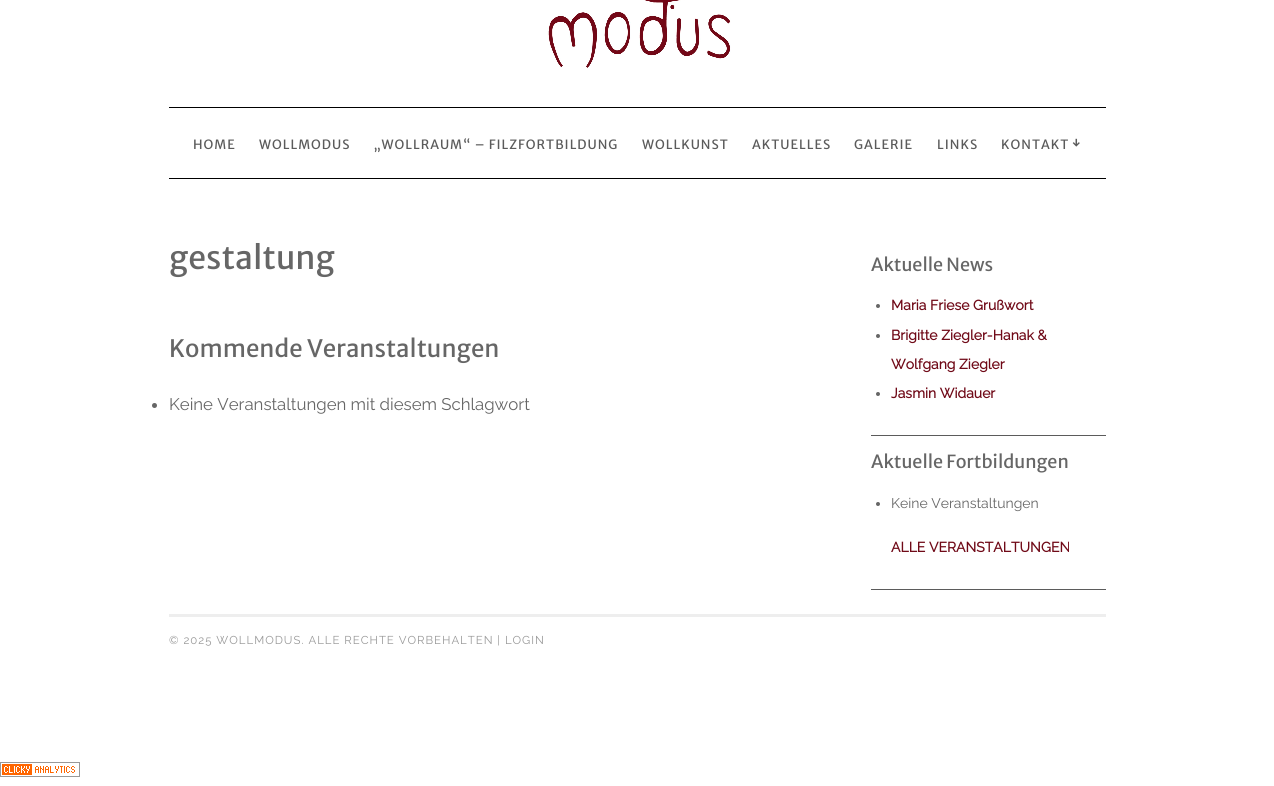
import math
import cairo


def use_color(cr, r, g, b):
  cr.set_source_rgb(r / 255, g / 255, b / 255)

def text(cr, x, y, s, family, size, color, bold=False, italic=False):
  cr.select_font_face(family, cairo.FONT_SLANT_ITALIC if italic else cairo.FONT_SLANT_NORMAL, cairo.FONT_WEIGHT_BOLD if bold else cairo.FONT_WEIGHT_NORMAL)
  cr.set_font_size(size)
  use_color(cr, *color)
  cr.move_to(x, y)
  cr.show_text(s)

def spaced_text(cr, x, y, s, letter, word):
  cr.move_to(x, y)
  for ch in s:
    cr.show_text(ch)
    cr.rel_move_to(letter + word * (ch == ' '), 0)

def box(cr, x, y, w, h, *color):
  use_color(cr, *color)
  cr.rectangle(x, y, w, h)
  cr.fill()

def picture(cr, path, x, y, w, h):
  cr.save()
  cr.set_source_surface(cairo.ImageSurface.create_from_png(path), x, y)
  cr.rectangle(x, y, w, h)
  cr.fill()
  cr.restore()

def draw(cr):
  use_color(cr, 255, 255, 255)
  cr.paint()
  box(cr, 169, 178, 937, 1, 0, 0, 0)
  picture(cr, "img_01.png", 547, 0, 184, 68)
  box(cr, 169, 107, 937, 1, 0, 0, 0)
  use_color(cr, 102, 102, 102)
  cr.arc(154.5, 405.5, 2.5, 0, 2 * math.pi)
  cr.fill()
  box(cr, 871, 435, 235, 1, 91, 91, 91)
  use_color(cr, 102, 102, 102)
  cr.arc(878, 306, 2, 0, 2 * math.pi)
  cr.fill()
  cr.arc(878, 336, 2, 0, 2 * math.pi)
  cr.fill()
  cr.arc(878, 394, 2, 0, 2 * math.pi)
  cr.fill()
  box(cr, 871, 589, 235, 1, 91, 91, 91)
  use_color(cr, 102, 102, 102)
  cr.arc(878, 504, 2, 0, 2 * math.pi)
  cr.fill()
  box(cr, 169, 614, 937, 3, 238, 238, 238)
  picture(cr, "img_02.png", 0, 762, 80, 15)
  cr.select_font_face("Merriweather Sans")
  cr.set_font_size(12.75)
  use_color(cr, 91, 91, 91)
  spaced_text(cr, 193, 149, "HOME", 1, 0)
  spaced_text(cr, 259, 149, "WOLLMODUS", 1, 0)
  spaced_text(cr, 374, 149, "„WOLLRAUM“ – FILZFORTBILDUNG", 1, 0)
  spaced_text(cr, 642, 149, "WOLLKUNST", 1, 0)
  spaced_text(cr, 752, 149, "AKTUELLES", 1, 0)
  spaced_text(cr, 854, 149, "GALERIE", 1, 0)
  spaced_text(cr, 937, 149, "LINKS", 1, 0)
  spaced_text(cr, 1001, 149, "KONTAKT", 1, 0)
  cr.set_font_size(12)
  spaced_text(cr, 1072, 147, "↓", 1, 0)
  text(cr, 169, 269, "gestaltung", "Merriweather Sans", 32, (102, 102, 102))
  text(cr, 169, 357, "Kommende Veranstaltungen", "Merriweather Sans", 24, (102, 102, 102))
  text(cr, 169, 410, "Keine Veranstaltungen mit diesem Schlagwort", "Raleway Thin", 16.8, (102, 102, 102))
  text(cr, 871, 271, "Aktuelle News", "Merriweather Sans", 18, (102, 102, 102))
  text(cr, 891, 310, "Maria Friese Grußwort", "Raleway", 14, (112, 10, 24), bold=True)
  text(cr, 891, 340, "Brigitte Ziegler-Hanak &", "Raleway", 14, (112, 10, 24), bold=True)
  text(cr, 891, 369, "Wolfgang Ziegler", "Raleway", 14, (112, 10, 24), bold=True)
  text(cr, 891, 398, "Jasmin Widauer", "Raleway", 14, (112, 10, 24), bold=True)
  text(cr, 871, 468, "Aktuelle Fortbildungen", "Merriweather Sans", 18, (102, 102, 102))
  text(cr, 891, 508, "Keine Veranstaltungen", "Raleway Thin", 14, (102, 102, 102))
  text(cr, 891, 552, "ALLE VERANSTALTUNGEN", "Raleway", 14, (112, 10, 24), bold=True)
  cr.select_font_face("Raleway Thin")
  cr.set_font_size(11.4)
  use_color(cr, 153, 153, 153)
  spaced_text(cr, 169, 644, "© 2025 WOLLMODUS. ALLE RECHTE VORBEHALTEN | LOGIN", 1, 0)


surface = cairo.ImageSurface(cairo.FORMAT_RGB24, 1274, 786)
cr = cairo.Context(surface)
options = cairo.FontOptions()
options.set_hint_metrics(cairo.HINT_METRICS_OFF)
options.set_hint_style(cairo.HINT_STYLE_NONE)
cr.set_font_options(options)
cr.set_miter_limit(4)
draw(cr)
surface.write_to_png("out.png")
